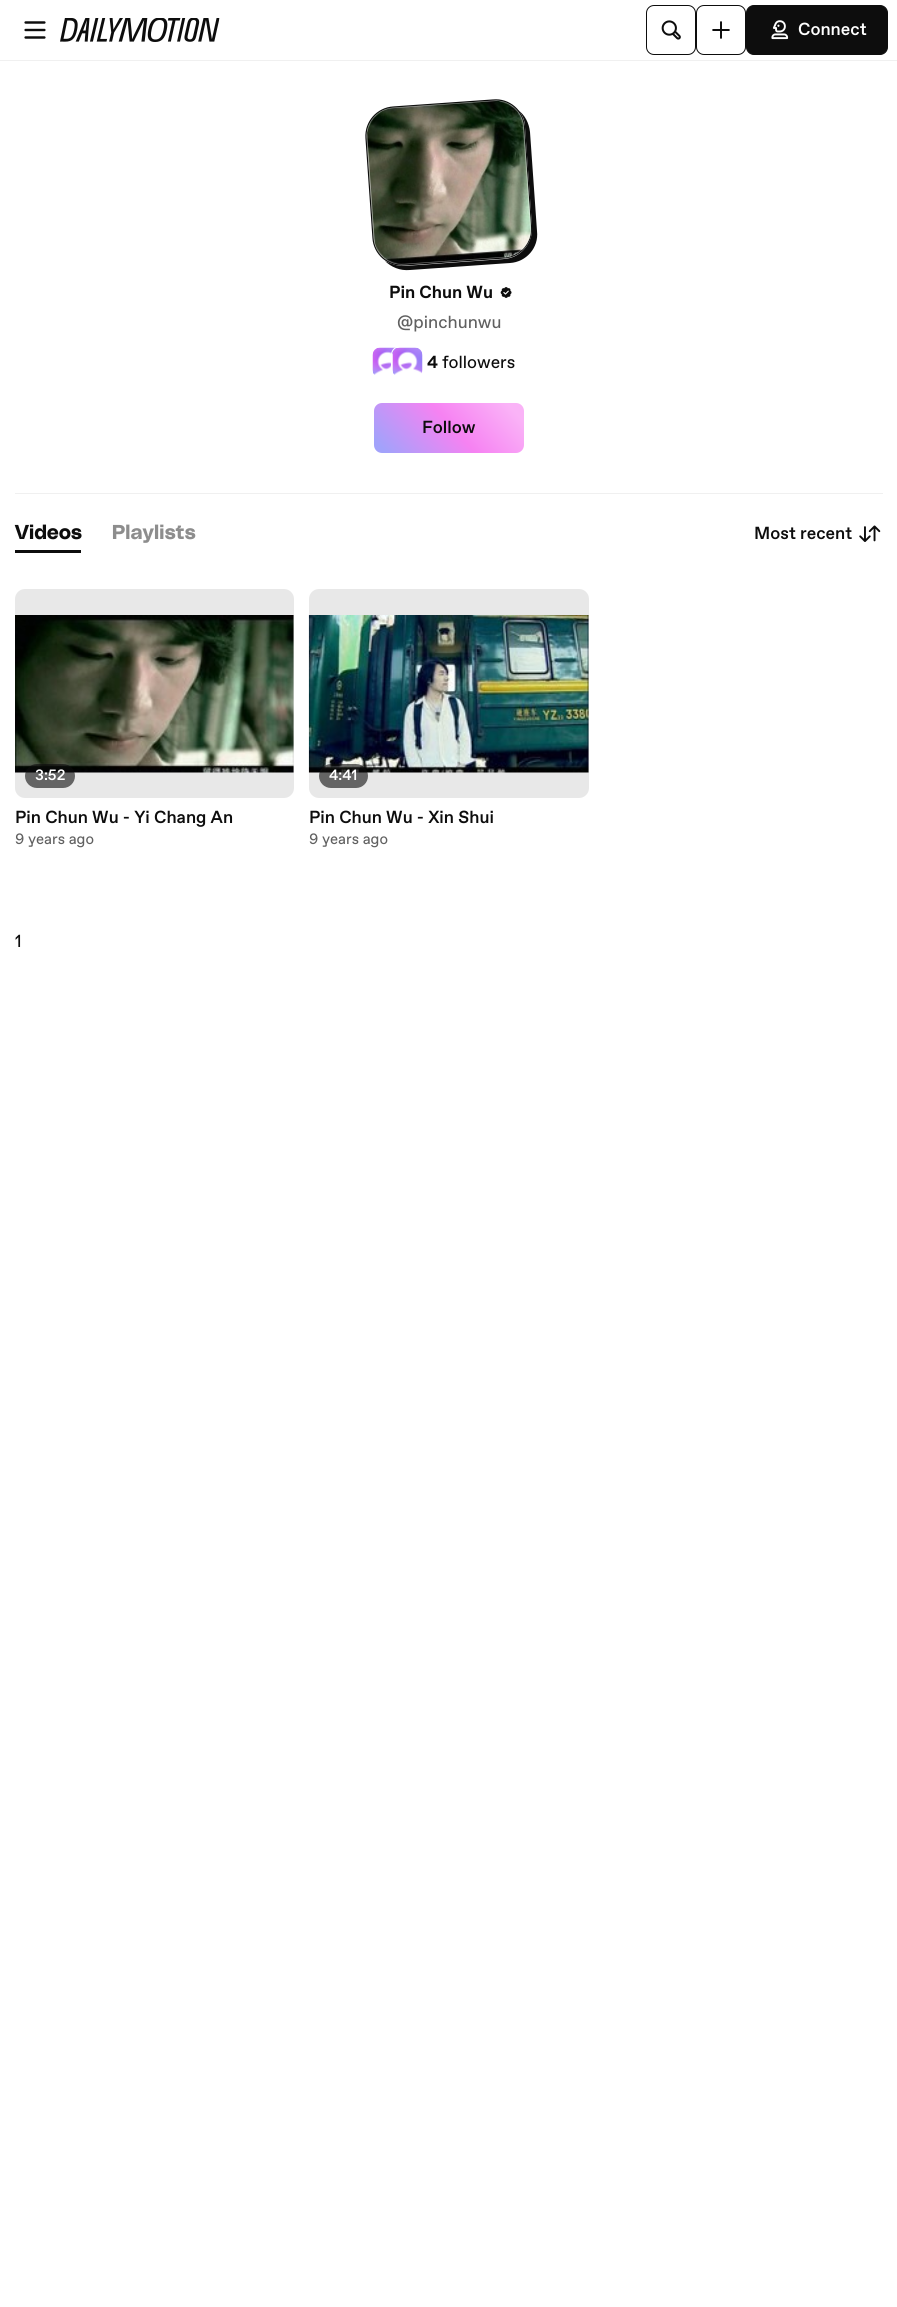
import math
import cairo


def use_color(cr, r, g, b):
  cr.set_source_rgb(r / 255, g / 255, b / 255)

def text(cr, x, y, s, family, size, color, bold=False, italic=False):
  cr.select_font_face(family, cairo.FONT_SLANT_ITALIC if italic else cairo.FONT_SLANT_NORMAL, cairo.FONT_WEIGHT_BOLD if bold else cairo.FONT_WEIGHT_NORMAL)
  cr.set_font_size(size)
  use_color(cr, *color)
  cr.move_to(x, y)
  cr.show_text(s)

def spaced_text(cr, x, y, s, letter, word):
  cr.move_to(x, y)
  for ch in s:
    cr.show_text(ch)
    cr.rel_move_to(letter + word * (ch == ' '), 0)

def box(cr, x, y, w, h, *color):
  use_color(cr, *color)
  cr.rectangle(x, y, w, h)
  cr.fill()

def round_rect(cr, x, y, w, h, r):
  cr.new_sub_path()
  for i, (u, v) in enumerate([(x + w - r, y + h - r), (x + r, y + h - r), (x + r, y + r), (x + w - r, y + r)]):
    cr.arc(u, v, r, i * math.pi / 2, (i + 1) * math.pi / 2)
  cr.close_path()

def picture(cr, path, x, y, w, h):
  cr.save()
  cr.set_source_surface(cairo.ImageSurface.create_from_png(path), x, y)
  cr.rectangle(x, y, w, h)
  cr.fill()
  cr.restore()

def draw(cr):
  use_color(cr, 255, 255, 255)
  cr.paint()
  box(cr, 0, 60, 897, 1, 240, 240, 240)
  picture(cr, "img_01.png", 24, 21, 22, 18)
  picture(cr, "img_02.png", 60, 18, 160, 24)
  round_rect(cr, 646.5, 5.5, 49, 49, 7.5)
  use_color(cr, 13, 13, 13)
  cr.set_line_width(1)
  cr.stroke()
  picture(cr, "img_03.png", 661, 20, 20, 20)
  round_rect(cr, 696.5, 5.5, 49, 49, 7.5)
  cr.stroke()
  picture(cr, "img_04.png", 712, 21, 18, 18)
  round_rect(cr, 746.5, 5.5, 141, 49, 7.5)
  cr.fill_preserve()
  cr.stroke()
  picture(cr, "img_05.png", 771, 20, 18, 20)
  box(cr, 15, 493, 868, 1, 240, 240, 240)
  use_color(cr, 13, 13, 13)
  cr.new_path()
  cr.move_to(385, 261)
  cr.curve_to(391, 267, 400, 271, 410, 270)
  cr.line_to(510, 263)
  cr.curve_to(526, 262, 539, 248, 537, 231)
  cr.line_to(530, 132)
  cr.curve_to(529, 123, 525, 115, 518, 110)
  cr.curve_to(522, 114, 525, 120, 525, 127)
  cr.line_to(532, 227)
  cr.curve_to(533, 243, 521, 258, 504, 259)
  cr.line_to(404, 266)
  cr.curve_to(397, 266, 391, 264, 385, 261)
  cr.close_path()
  cr.fill()
  cr.new_path()
  cr.move_to(393.5, 107)
  cr.line_to(493, 100)
  cr.curve_to(509.5, 98.5, 523.5, 111, 524.5, 127)
  cr.line_to(531.5, 227)
  cr.curve_to(532.5, 243, 520.5, 257, 504, 258)
  cr.line_to(404.5, 265)
  cr.curve_to(388, 266.5, 374, 254, 373, 238)
  cr.line_to(366, 138)
  cr.curve_to(365, 122, 377, 108, 393.5, 107)
  cr.close_path()
  cr.set_line_width(1.2)
  cr.stroke()
  picture(cr, "img_06.png", 366, 99, 166, 166)
  picture(cr, "img_07.png", 500, 287, 12, 11)
  picture(cr, "img_08.png", 372, 347, 26, 28)
  round_rect(cr, 371.5, 346.5, 32, 32, 8.5)
  use_color(cr, 255, 255, 255)
  cr.set_line_width(1)
  cr.stroke()
  picture(cr, "img_09.png", 392, 347, 31, 28)
  round_rect(cr, 391.5, 346.5, 32, 32, 8.5)
  cr.stroke()
  gradient = cairo.LinearGradient(503, 379, 395, 476)
  gradient.add_color_stop_rgba(0.09, 0.98, 0.702, 0.969, 1)
  gradient.add_color_stop_rgba(0.48, 0.965, 0.51, 0.949, 1)
  gradient.add_color_stop_rgba(0.94, 0.635, 0.635, 0.984, 1)
  cr.set_source(gradient)
  round_rect(cr, 374, 403, 150, 50, 8)
  cr.fill()
  box(cr, 15, 550, 66, 3, 13, 13, 13)
  picture(cr, "img_10.png", 859, 525, 22, 17)
  use_color(cr, 232, 232, 232)
  round_rect(cr, 15, 589, 279, 209, 10)
  cr.fill()
  picture(cr, "img_11.png", 15, 615, 279, 158)
  cr.set_source_rgba(0.051, 0.051, 0.051, 0.6)
  round_rect(cr, 25, 764, 50, 24, 12)
  cr.fill()
  use_color(cr, 232, 232, 232)
  round_rect(cr, 309, 589, 280, 209, 10)
  cr.fill()
  picture(cr, "img_12.png", 308, 615, 281, 158)
  cr.set_source_rgba(0.051, 0.051, 0.051, 0.6)
  round_rect(cr, 319, 764, 49, 24, 12)
  cr.fill()
  text(cr, 798, 35, "Connect", "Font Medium", 17.5, (255, 255, 255))
  text(cr, 389, 298, "Pin Chun Wu", "Font", 17.5, (13, 13, 13), bold=True)
  text(cr, 397, 328, "@pinchunwu", "Font", 17.5, (96, 96, 96))
  text(cr, 427, 368, "4", "Font", 17.5, (13, 13, 13), bold=True)
  text(cr, 442, 368, "followers", "Font", 17.5, (13, 13, 13))
  text(cr, 422, 433, "Follow", "Font Medium", 17.5, (13, 13, 13))
  cr.select_font_face("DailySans", cairo.FONT_SLANT_NORMAL, cairo.FONT_WEIGHT_BOLD)
  cr.set_font_size(20)
  spaced_text(cr, 15, 539, "Videos", 0.25, 0)
  use_color(cr, 141, 141, 141)
  spaced_text(cr, 112, 539, "Playlists", 0.25, 0)
  text(cr, 754, 539, "Most recent", "Font Medium", 17.5, (13, 13, 13))
  text(cr, 35, 780, "3:52", "Font Medium", 15, (255, 255, 255))
  text(cr, 15, 823, "Pin Chun Wu - Yi Chang An", "Font Medium", 17.5, (13, 13, 13))
  text(cr, 15, 844, "9 years ago", "Font", 15, (96, 96, 96))
  text(cr, 329, 780, "4:41", "Font Medium", 15, (255, 255, 255))
  text(cr, 309, 823, "Pin Chun Wu - Xin Shui", "Font Medium", 17.5, (13, 13, 13))
  text(cr, 309, 844, "9 years ago", "Font", 15, (96, 96, 96))
  text(cr, 15, 947, "1", "Font", 17.5, (13, 13, 13))


surface = cairo.ImageSurface(cairo.FORMAT_RGB24, 897, 2307)
cr = cairo.Context(surface)
options = cairo.FontOptions()
options.set_hint_metrics(cairo.HINT_METRICS_OFF)
options.set_hint_style(cairo.HINT_STYLE_NONE)
cr.set_font_options(options)
cr.set_miter_limit(4)
draw(cr)
surface.write_to_png("out.png")
